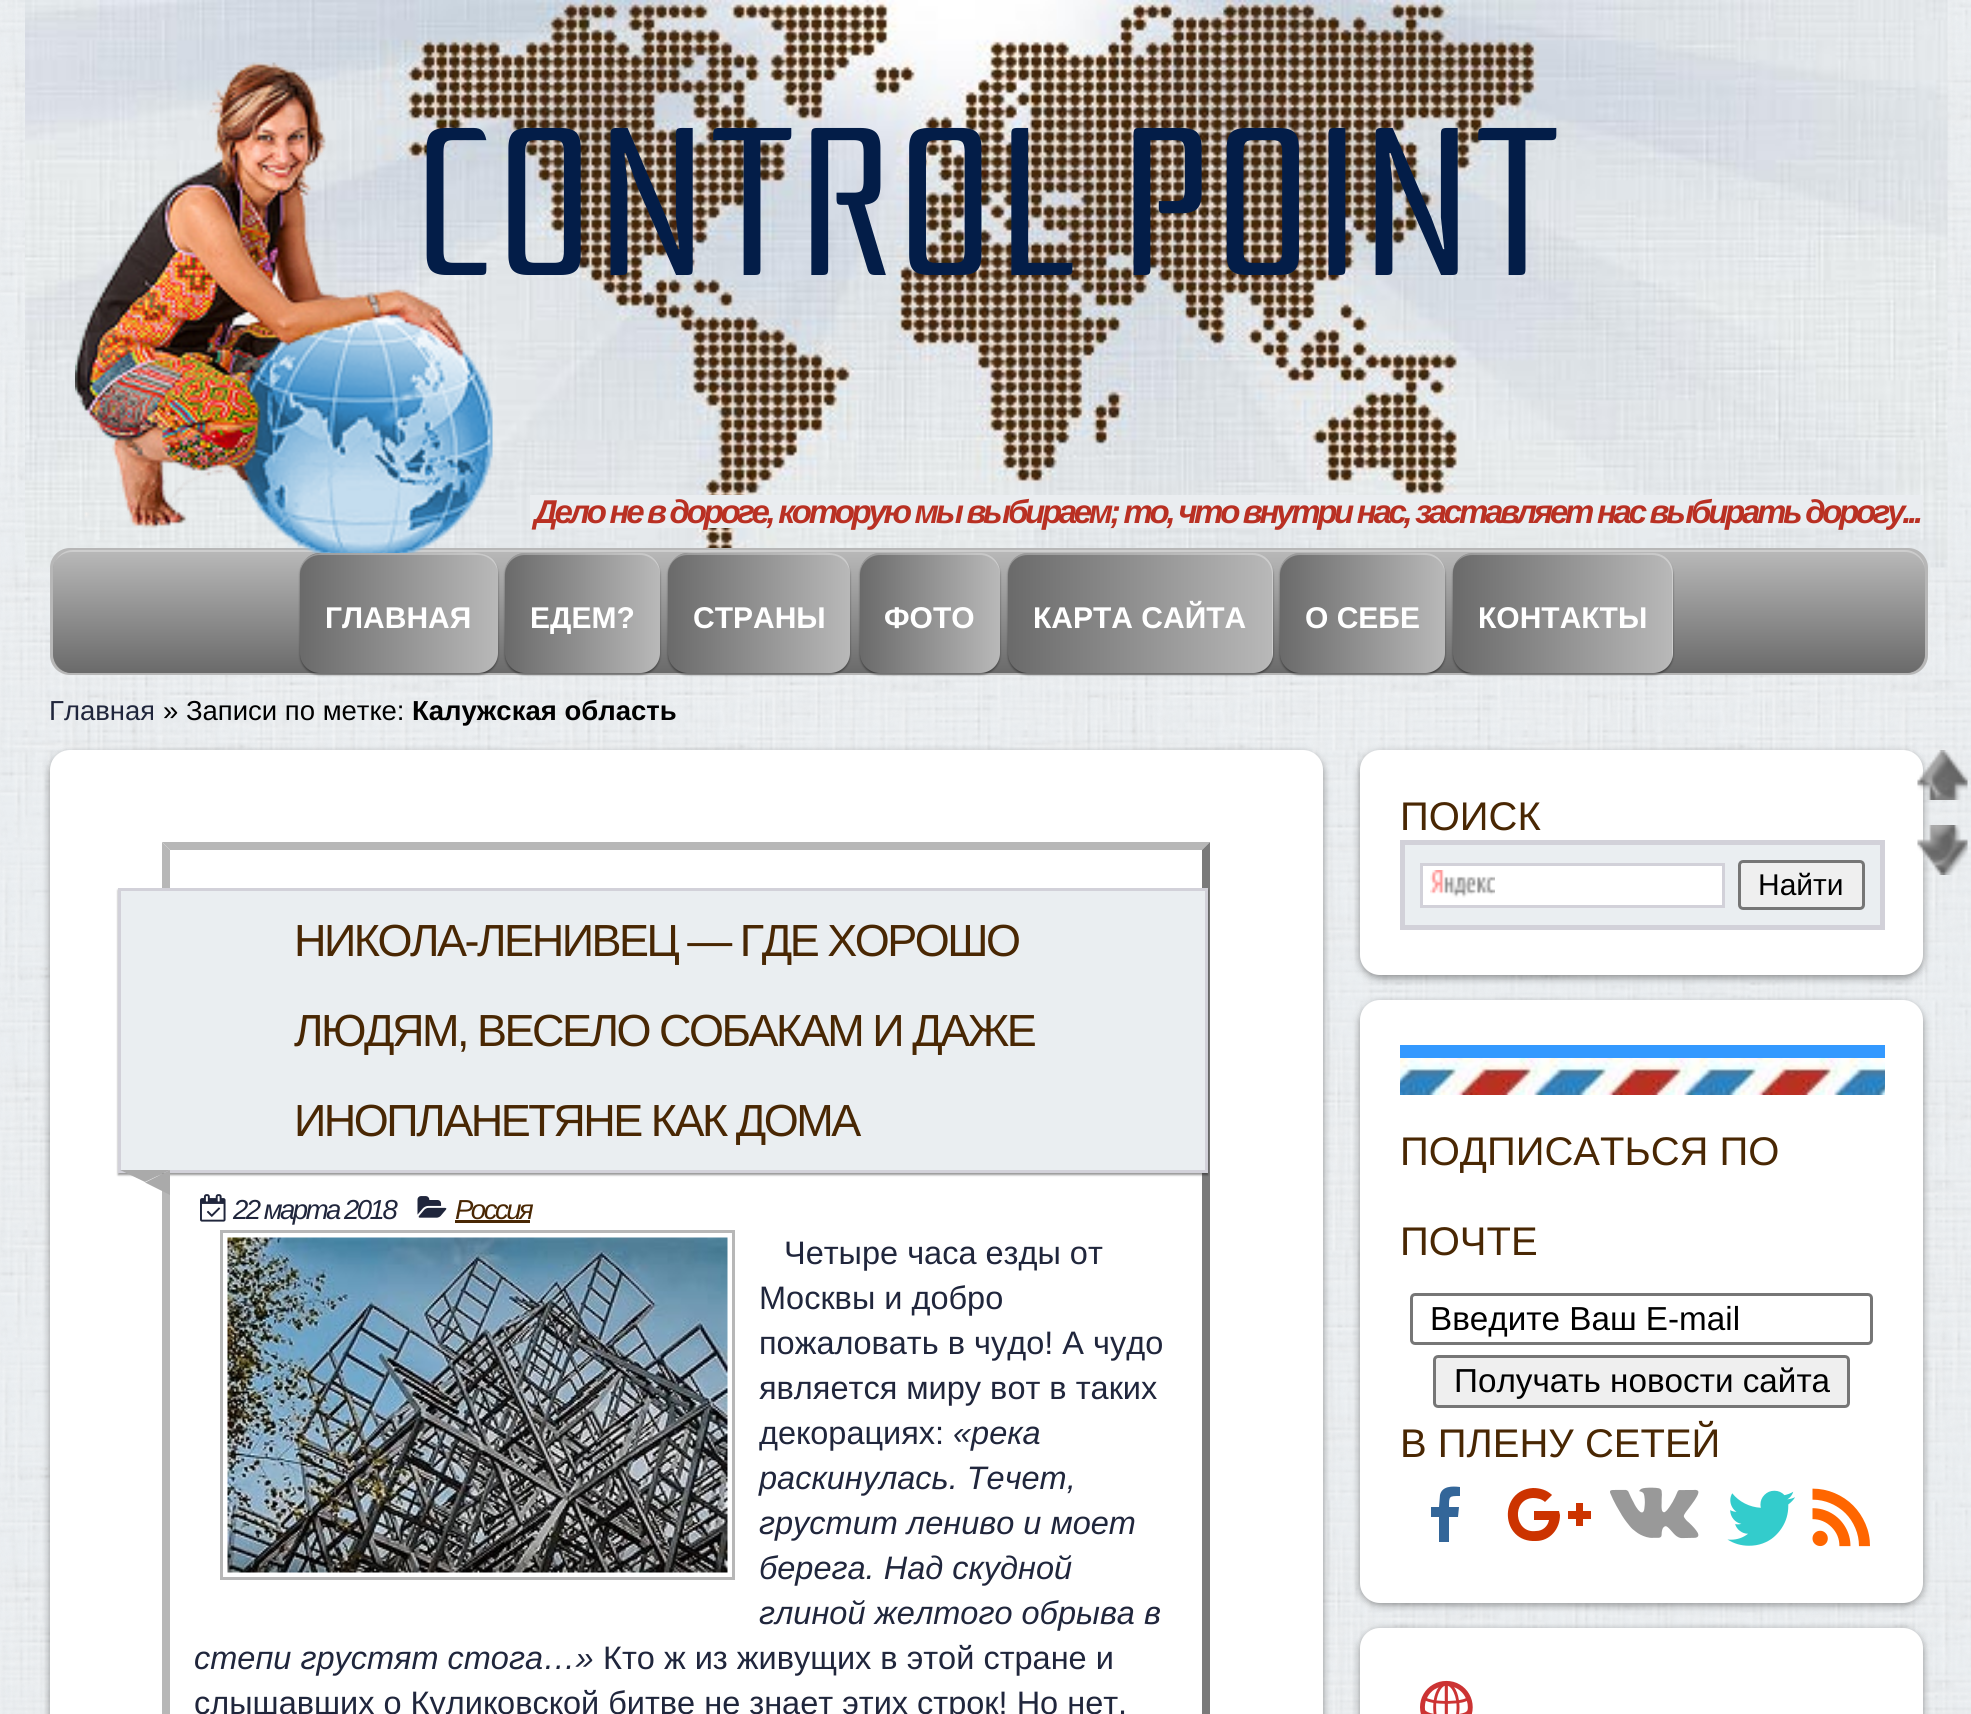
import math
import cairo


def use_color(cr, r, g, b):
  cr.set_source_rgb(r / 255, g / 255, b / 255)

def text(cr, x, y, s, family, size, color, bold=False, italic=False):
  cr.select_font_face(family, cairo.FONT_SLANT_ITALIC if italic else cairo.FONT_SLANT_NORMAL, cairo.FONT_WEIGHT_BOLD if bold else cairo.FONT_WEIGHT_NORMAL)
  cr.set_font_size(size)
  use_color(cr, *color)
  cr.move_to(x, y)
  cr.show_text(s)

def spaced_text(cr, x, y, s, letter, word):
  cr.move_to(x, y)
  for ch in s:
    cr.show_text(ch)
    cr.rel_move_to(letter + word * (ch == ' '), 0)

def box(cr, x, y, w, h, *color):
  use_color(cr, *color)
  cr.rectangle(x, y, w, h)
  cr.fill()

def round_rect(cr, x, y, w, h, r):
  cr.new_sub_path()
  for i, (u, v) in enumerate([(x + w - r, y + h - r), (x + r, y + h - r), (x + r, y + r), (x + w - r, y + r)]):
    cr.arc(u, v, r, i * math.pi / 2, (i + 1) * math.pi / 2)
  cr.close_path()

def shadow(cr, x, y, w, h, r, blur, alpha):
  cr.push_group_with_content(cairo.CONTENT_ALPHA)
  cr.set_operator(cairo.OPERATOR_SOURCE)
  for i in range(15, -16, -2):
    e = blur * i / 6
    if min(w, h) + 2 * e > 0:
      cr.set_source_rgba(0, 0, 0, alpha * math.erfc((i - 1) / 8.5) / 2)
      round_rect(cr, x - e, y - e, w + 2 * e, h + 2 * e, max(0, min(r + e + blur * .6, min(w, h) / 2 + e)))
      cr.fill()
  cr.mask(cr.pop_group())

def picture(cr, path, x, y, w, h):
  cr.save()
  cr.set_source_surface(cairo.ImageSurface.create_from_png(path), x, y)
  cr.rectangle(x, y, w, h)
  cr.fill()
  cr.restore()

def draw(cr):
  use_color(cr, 234, 238, 241)
  cr.paint()
  picture(cr, "img_01.png", 0, 0, 1971, 1714)
  picture(cr, "img_02.png", 25, 0, 1923, 568)
  use_color(cr, 183, 183, 183)
  round_rect(cr, 51.5, 549.5, 1875, 124, 18.5)
  cr.fill_preserve()
  cr.set_line_width(3)
  cr.stroke()
  cr.save()
  round_rect(cr, 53, 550, 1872, 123, 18)
  cr.clip()
  use_color(cr, 0, 0, 0)
  shadow(cr, 53, 553, 1872, 122, 20, 1, 0.4)
  cr.restore()
  cr.save()
  round_rect(cr, 53, 550, 1872, 123, 18)
  cr.clip()
  gradient = cairo.LinearGradient(989, 550, 989, 673)
  gradient.add_color_stop_rgba(0, 0.725, 0.725, 0.725, 1)
  gradient.add_color_stop_rgba(1, 0.416, 0.416, 0.416, 1)
  cr.set_source(gradient)
  round_rect(cr, 53, 550, 1872, 123, 20)
  cr.fill()
  cr.restore()
  cr.set_source_rgba(1, 1, 1, 0.3)
  cr.new_path()
  cr.move_to(72, 552)
  cr.line_to(1905, 552)
  cr.curve_to(1916, 552, 1925, 561, 1925, 572)
  cr.line_to(1925, 570)
  cr.curve_to(1925, 559, 1916, 550, 1905, 550)
  cr.line_to(73, 550)
  cr.curve_to(65, 550, 58, 555, 55, 562)
  cr.curve_to(58, 556, 65, 552, 72, 552)
  cr.close_path()
  cr.fill()
  picture(cr, "img_03.png", 75, 62, 418, 492)
  box(cr, 530, 495, 1393, 33, 234, 237, 240)
  use_color(cr, 0, 0, 0)
  shadow(cr, 300, 555, 198, 120, 20, 1, 0.4)
  gradient = cairo.LinearGradient(498, 613, 300, 613)
  gradient.add_color_stop_rgba(0, 0.725, 0.725, 0.725, 1)
  gradient.add_color_stop_rgba(1, 0.416, 0.416, 0.416, 1)
  cr.set_source(gradient)
  round_rect(cr, 300, 553, 198, 120, 20)
  cr.fill()
  cr.set_source_rgba(1, 1, 1, 0.3)
  cr.new_path()
  cr.move_to(320, 555)
  cr.line_to(478, 555)
  cr.curve_to(489, 555, 498, 564, 498, 575)
  cr.curve_to(498, 548, 471, 553, 452, 553)
  cr.line_to(346, 553)
  cr.curve_to(327, 553, 300, 548, 300, 575)
  cr.curve_to(300, 564, 309, 555, 320, 555)
  cr.close_path()
  cr.fill()
  use_color(cr, 0, 0, 0)
  shadow(cr, 505, 555, 155, 120, 20, 1, 0.4)
  gradient = cairo.LinearGradient(660, 613, 505, 613)
  gradient.add_color_stop_rgba(0, 0.725, 0.725, 0.725, 1)
  gradient.add_color_stop_rgba(1, 0.416, 0.416, 0.416, 1)
  cr.set_source(gradient)
  round_rect(cr, 505, 553, 155, 120, 20)
  cr.fill()
  cr.set_source_rgba(1, 1, 1, 0.3)
  cr.new_path()
  cr.move_to(525, 555)
  cr.line_to(640, 555)
  cr.curve_to(651, 555, 660, 564, 660, 575)
  cr.line_to(660, 573)
  cr.curve_to(660, 562, 651, 553, 640, 553)
  cr.line_to(525, 553)
  cr.curve_to(514, 553, 505, 562, 505, 573)
  cr.line_to(505, 575)
  cr.curve_to(505, 564, 514, 555, 525, 555)
  cr.close_path()
  cr.fill()
  use_color(cr, 0, 0, 0)
  shadow(cr, 668, 555, 182, 120, 20, 1, 0.4)
  gradient = cairo.LinearGradient(850, 613, 668, 613)
  gradient.add_color_stop_rgba(0, 0.725, 0.725, 0.725, 1)
  gradient.add_color_stop_rgba(1, 0.416, 0.416, 0.416, 1)
  cr.set_source(gradient)
  round_rect(cr, 668, 553, 182, 120, 20)
  cr.fill()
  cr.set_source_rgba(1, 1, 1, 0.3)
  cr.new_path()
  cr.move_to(688, 555)
  cr.line_to(830, 555)
  cr.curve_to(841, 555, 850, 564, 850, 575)
  cr.curve_to(850, 548, 825, 553, 806, 553)
  cr.line_to(712, 553)
  cr.curve_to(693, 553, 668, 548, 668, 575)
  cr.curve_to(668, 564, 676, 555, 688, 555)
  cr.close_path()
  cr.fill()
  use_color(cr, 0, 0, 0)
  shadow(cr, 860, 555, 140, 120, 20, 1, 0.4)
  gradient = cairo.LinearGradient(1000, 613, 860, 613)
  gradient.add_color_stop_rgba(0, 0.725, 0.725, 0.725, 1)
  gradient.add_color_stop_rgba(1, 0.416, 0.416, 0.416, 1)
  cr.set_source(gradient)
  round_rect(cr, 860, 553, 140, 120, 20)
  cr.fill()
  cr.set_source_rgba(1, 1, 1, 0.3)
  cr.new_path()
  cr.move_to(880, 555)
  cr.line_to(980, 555)
  cr.curve_to(991, 555, 1000, 564, 1000, 575)
  cr.line_to(1000, 573)
  cr.curve_to(1000, 562, 991, 553, 980, 553)
  cr.line_to(880, 553)
  cr.curve_to(869, 553, 860, 562, 860, 573)
  cr.line_to(860, 575)
  cr.curve_to(860, 564, 869, 555, 880, 555)
  cr.close_path()
  cr.fill()
  use_color(cr, 0, 0, 0)
  shadow(cr, 1008, 555, 265, 120, 20, 1, 0.4)
  gradient = cairo.LinearGradient(1273, 613, 1008, 613)
  gradient.add_color_stop_rgba(0, 0.725, 0.725, 0.725, 1)
  gradient.add_color_stop_rgba(1, 0.416, 0.416, 0.416, 1)
  cr.set_source(gradient)
  round_rect(cr, 1008, 553, 265, 120, 20)
  cr.fill()
  cr.set_source_rgba(1, 1, 1, 0.3)
  cr.new_path()
  cr.move_to(1028, 555)
  cr.line_to(1252, 555)
  cr.curve_to(1264, 555, 1272, 564, 1272, 575)
  cr.line_to(1272, 655)
  cr.curve_to(1272, 658, 1272, 660, 1271, 662)
  cr.curve_to(1272, 659, 1273, 656, 1273, 653)
  cr.line_to(1273, 573)
  cr.curve_to(1273, 562, 1264, 553, 1253, 553)
  cr.line_to(1028, 553)
  cr.curve_to(1017, 553, 1008, 562, 1008, 573)
  cr.line_to(1008, 575)
  cr.curve_to(1008, 564, 1016, 555, 1028, 555)
  cr.close_path()
  cr.fill()
  use_color(cr, 0, 0, 0)
  shadow(cr, 1280, 555, 165, 120, 20, 1, 0.4)
  gradient = cairo.LinearGradient(1445, 613, 1280, 613)
  gradient.add_color_stop_rgba(0, 0.725, 0.725, 0.725, 1)
  gradient.add_color_stop_rgba(1, 0.416, 0.416, 0.416, 1)
  cr.set_source(gradient)
  round_rect(cr, 1280, 553, 165, 120, 20)
  cr.fill()
  cr.set_source_rgba(1, 1, 1, 0.3)
  cr.new_path()
  cr.move_to(1300, 555)
  cr.line_to(1425, 555)
  cr.curve_to(1436, 555, 1445, 564, 1445, 575)
  cr.line_to(1445, 573)
  cr.curve_to(1445, 562, 1436, 553, 1425, 553)
  cr.line_to(1300, 553)
  cr.curve_to(1289, 553, 1280, 562, 1280, 573)
  cr.line_to(1280, 575)
  cr.curve_to(1280, 564, 1289, 555, 1300, 555)
  cr.close_path()
  cr.fill()
  use_color(cr, 0, 0, 0)
  shadow(cr, 1453, 555, 220, 120, 20, 1, 0.4)
  gradient = cairo.LinearGradient(1673, 613, 1453, 613)
  gradient.add_color_stop_rgba(0, 0.725, 0.725, 0.725, 1)
  gradient.add_color_stop_rgba(1, 0.416, 0.416, 0.416, 1)
  cr.set_source(gradient)
  round_rect(cr, 1453, 553, 220, 120, 20)
  cr.fill()
  cr.set_source_rgba(1, 1, 1, 0.3)
  cr.new_path()
  cr.move_to(1472, 555)
  cr.line_to(1652, 555)
  cr.curve_to(1664, 555, 1672, 564, 1672, 575)
  cr.line_to(1672, 655)
  cr.curve_to(1672, 658, 1672, 660, 1671, 662)
  cr.curve_to(1672, 659, 1673, 656, 1673, 653)
  cr.line_to(1673, 573)
  cr.curve_to(1673, 562, 1664, 553, 1653, 553)
  cr.line_to(1473, 553)
  cr.curve_to(1465, 553, 1458, 558, 1455, 565)
  cr.curve_to(1458, 559, 1465, 555, 1472, 555)
  cr.close_path()
  cr.fill()
  use_color(cr, 0, 0, 0)
  shadow(cr, 50, 753, 1273, 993, 20, 4, 0.4)
  use_color(cr, 255, 255, 255)
  round_rect(cr, 50, 750, 1273, 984, 20)
  cr.fill()
  use_color(cr, 183, 183, 183)
  cr.new_path()
  cr.move_to(162, 842)
  cr.line_to(1210, 842)
  cr.line_to(1202, 850)
  cr.line_to(170, 850)
  cr.close_path()
  cr.fill()
  use_color(cr, 122, 122, 122)
  cr.new_path()
  cr.move_to(1210, 842)
  cr.line_to(1210, 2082)
  cr.line_to(1202, 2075)
  cr.line_to(1202, 850)
  cr.close_path()
  cr.fill()
  use_color(cr, 183, 183, 183)
  cr.new_path()
  cr.move_to(162, 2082)
  cr.line_to(162, 842)
  cr.line_to(170, 850)
  cr.line_to(170, 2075)
  cr.close_path()
  cr.fill()
  use_color(cr, 0, 0, 0)
  shadow(cr, 118, 890, 1090, 285, 0, 1, 0.4)
  use_color(cr, 234, 238, 241)
  cr.rectangle(119.5, 889.5, 1087, 282)
  cr.fill_preserve()
  use_color(cr, 210, 209, 217)
  cr.stroke()
  use_color(cr, 170, 170, 170)
  cr.new_path()
  cr.move_to(120, 1170)
  cr.line_to(170, 1170)
  cr.line_to(145, 1182)
  cr.close_path()
  cr.fill()
  cr.new_path()
  cr.move_to(170, 1170)
  cr.line_to(170, 1195)
  cr.line_to(145, 1182.5)
  cr.close_path()
  cr.fill()
  picture(cr, "img_04.png", 200, 1194, 26, 28)
  picture(cr, "img_05.png", 417, 1196, 30, 22)
  box(cr, 455, 1220, 75, 3, 73, 39, 3)
  cr.rectangle(221.5, 1231.5, 512, 347)
  use_color(cr, 183, 183, 183)
  cr.stroke()
  picture(cr, "img_06.png", 227, 1237, 501, 336)
  use_color(cr, 0, 0, 0)
  shadow(cr, 1360, 753, 563, 225, 20, 4, 0.4)
  use_color(cr, 255, 255, 255)
  round_rect(cr, 1360, 750, 563, 225, 20)
  cr.fill()
  cr.rectangle(1402.5, 842.5, 480, 85)
  use_color(cr, 210, 209, 217)
  cr.set_line_width(5)
  cr.stroke()
  box(cr, 1405, 845, 475, 80, 234, 238, 241)
  box(cr, 1423, 866, 299, 39, 255, 255, 255)
  picture(cr, "img_07.png", 1430, 870, 65, 28)
  cr.rectangle(1421.5, 864.5, 302, 42)
  use_color(cr, 210, 209, 217)
  cr.set_line_width(3)
  cr.stroke()
  use_color(cr, 239, 239, 239)
  round_rect(cr, 1739.5, 861.5, 124, 47, 3.5)
  cr.fill_preserve()
  use_color(cr, 118, 118, 118)
  cr.stroke()
  use_color(cr, 0, 0, 0)
  shadow(cr, 1360, 1003, 563, 602, 20, 4, 0.4)
  use_color(cr, 255, 255, 255)
  round_rect(cr, 1360, 1000, 563, 603, 20)
  cr.fill()
  picture(cr, "img_08.png", 1400, 1058, 485, 37)
  box(cr, 1400, 1045, 485, 13, 51, 153, 255)
  round_rect(cr, 1411.5, 1294.5, 460, 49, 3.5)
  use_color(cr, 118, 118, 118)
  cr.stroke()
  use_color(cr, 239, 239, 239)
  round_rect(cr, 1434.5, 1356.5, 414, 50, 3.5)
  cr.fill_preserve()
  use_color(cr, 118, 118, 118)
  cr.stroke()
  use_color(cr, 51, 102, 153)
  cr.new_path()
  cr.move_to(1460, 1487)
  cr.line_to(1460, 1496)
  cr.curve_to(1449, 1496, 1449, 1496, 1449, 1507)
  cr.line_to(1459, 1507)
  cr.line_to(1458, 1517)
  cr.line_to(1449, 1517)
  cr.line_to(1449, 1542)
  cr.line_to(1439, 1542)
  cr.line_to(1439, 1517)
  cr.line_to(1431, 1517)
  cr.line_to(1431, 1507)
  cr.line_to(1439, 1507)
  cr.line_to(1440, 1495)
  cr.curve_to(1442, 1486, 1452, 1486, 1460, 1487)
  cr.close_path()
  cr.fill()
  use_color(cr, 204, 51, 0)
  cr.new_path()
  cr.move_to(1560, 1515)
  cr.curve_to(1560, 1529, 1550, 1541, 1536, 1541)
  cr.curve_to(1500, 1543, 1498, 1490, 1533, 1488)
  cr.curve_to(1540, 1488, 1547, 1490, 1552, 1495)
  cr.line_to(1545, 1502)
  cr.curve_to(1542, 1499, 1537, 1498, 1533, 1498)
  cr.curve_to(1511, 1499, 1514, 1534, 1536, 1531)
  cr.curve_to(1543, 1531, 1548, 1526, 1549, 1520)
  cr.line_to(1534, 1520)
  cr.line_to(1534, 1511)
  cr.line_to(1559, 1511)
  cr.close_path()
  cr.move_to(1591, 1511)
  cr.line_to(1591, 1519)
  cr.line_to(1583, 1519)
  cr.line_to(1583, 1526)
  cr.line_to(1576, 1526)
  cr.line_to(1576, 1519)
  cr.line_to(1568, 1519)
  cr.line_to(1568, 1511)
  cr.line_to(1576, 1511)
  cr.line_to(1576, 1503)
  cr.line_to(1583, 1503)
  cr.line_to(1583, 1511)
  cr.close_path()
  cr.fill()
  picture(cr, "img_09.png", 1610, 1487, 89, 52)
  picture(cr, "img_10.png", 1727, 1490, 68, 56)
  picture(cr, "img_11.png", 1812, 1488, 58, 59)
  use_color(cr, 0, 0, 0)
  shadow(cr, 1360, 1630, 563, 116, 20, 4, 0.4)
  use_color(cr, 255, 255, 255)
  round_rect(cr, 1360, 1628, 563, 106, 20)
  cr.fill()
  picture(cr, "img_12.png", 1420, 1680, 53, 34)
  picture(cr, "img_13.png", 1917, 750, 51, 50)
  picture(cr, "img_14.png", 1917, 825, 51, 50)
  text(cr, 412, 275, "CONTROL POINT", "Rationale", 210, (3, 29, 72))
  cr.select_font_face("Liberation Sans", cairo.FONT_SLANT_ITALIC, cairo.FONT_WEIGHT_BOLD)
  cr.set_font_size(33)
  use_color(cr, 185, 48, 35)
  spaced_text(cr, 534, 523, "Дело не в дороге, которую мы выбираем; то, что внутри нас, заставляет нас выбирать дорогу...", -3.3, 0)
  text(cr, 325, 628, "ГЛАВНАЯ", "Liberation Sans", 30, (255, 255, 255), bold=True)
  text(cr, 530, 628, "ЕДЕМ?", "Liberation Sans", 30, (255, 255, 255), bold=True)
  text(cr, 693, 628, "СТРАНЫ", "Liberation Sans", 30, (255, 255, 255), bold=True)
  text(cr, 884, 628, "ФОТО", "Liberation Sans", 30, (255, 255, 255), bold=True)
  text(cr, 1033, 628, "КАРТА САЙТА", "Liberation Sans", 30, (255, 255, 255), bold=True)
  text(cr, 1305, 628, "О СЕБЕ", "Liberation Sans", 30, (255, 255, 255), bold=True)
  text(cr, 1478, 628, "КОНТАКТЫ", "Liberation Sans", 30, (255, 255, 255), bold=True)
  text(cr, 49, 720, "Главная", "Liberation Sans", 27.5, (32, 38, 60))
  text(cr, 163, 720, "» Записи по метке:", "Liberation Sans", 27.5, (0, 0, 0))
  text(cr, 412, 720, "Калужская область", "Liberation Sans", 27.5, (0, 0, 0), bold=True)
  cr.select_font_face("Liberation Sans")
  cr.set_font_size(45)
  use_color(cr, 73, 39, 3)
  spaced_text(cr, 294, 956, "НИКОЛА-ЛЕНИВЕЦ — ГДЕ ХОРОШО", -2.5, 0)
  spaced_text(cr, 294, 1046, "ЛЮДЯМ, ВЕСЕЛО СОБАКАМ И ДАЖЕ", -2.5, 0)
  spaced_text(cr, 294, 1136, "ИНОПЛАНЕТЯНЕ КАК ДОМА", -2.5, 0)
  cr.select_font_face("Liberation Sans", cairo.FONT_SLANT_ITALIC)
  cr.set_font_size(27.5)
  use_color(cr, 32, 38, 60)
  spaced_text(cr, 233, 1219, "22 марта 2018", -2.5, 0)
  use_color(cr, 73, 39, 3)
  spaced_text(cr, 455, 1219, "Россия", -2.5, 0)
  text(cr, 784, 1264, "Четыре часа езды от", "Liberation Sans", 32.5, (32, 38, 60))
  text(cr, 759, 1309, "Москвы и добро", "Liberation Sans", 32.5, (32, 38, 60))
  text(cr, 759, 1354, "пожаловать в чудо! А чудо", "Liberation Sans", 32.5, (32, 38, 60))
  text(cr, 759, 1399, "является миру вот в таких", "Liberation Sans", 32.5, (32, 38, 60))
  text(cr, 759, 1444, "декорациях:", "Liberation Sans", 32.5, (32, 38, 60))
  text(cr, 953, 1444, "«река", "Liberation Sans", 32.5, (32, 38, 60), italic=True)
  text(cr, 759, 1489, "раскинулась. Течет,", "Liberation Sans", 32.5, (32, 38, 60), italic=True)
  text(cr, 759, 1534, "грустит лениво и моет", "Liberation Sans", 32.5, (32, 38, 60), italic=True)
  text(cr, 759, 1579, "берега. Над скудной", "Liberation Sans", 32.5, (32, 38, 60), italic=True)
  text(cr, 759, 1624, "глиной желтого обрыва в", "Liberation Sans", 32.5, (32, 38, 60), italic=True)
  text(cr, 194, 1669, "степи грустят стога…»", "Liberation Sans", 32.5, (32, 38, 60), italic=True)
  text(cr, 603, 1669, "Кто ж из живущих в этой стране и", "Liberation Sans", 32.5, (32, 38, 60))
  text(cr, 194, 1714, "слышавших о Куликовской битве не знает этих строк! Но нет.", "Liberation Sans", 32.5, (32, 38, 60))
  text(cr, 1400, 830, "ПОИСК", "Liberation Sans", 40, (73, 39, 3))
  text(cr, 1758, 895, "Найти", "Liberation Sans", 30, (0, 0, 0))
  text(cr, 1400, 1165, "ПОДПИСАТЬСЯ ПО", "Liberation Sans", 40, (73, 39, 3))
  text(cr, 1400, 1255, "ПОЧТЕ", "Liberation Sans", 40, (73, 39, 3))
  text(cr, 1430, 1330, "Введите Ваш E-mail", "Liberation Sans", 33.25, (0, 0, 0))
  text(cr, 1454, 1392, "Получать новости сайта", "Liberation Sans", 33.25, (0, 0, 0))
  text(cr, 1400, 1457, "В ПЛЕНУ СЕТЕЙ", "Liberation Sans", 40, (73, 39, 3))


surface = cairo.ImageSurface(cairo.FORMAT_RGB24, 1971, 1714)
cr = cairo.Context(surface)
options = cairo.FontOptions()
options.set_hint_metrics(cairo.HINT_METRICS_OFF)
options.set_hint_style(cairo.HINT_STYLE_NONE)
cr.set_font_options(options)
cr.set_miter_limit(4)
draw(cr)
surface.write_to_png("out.png")
